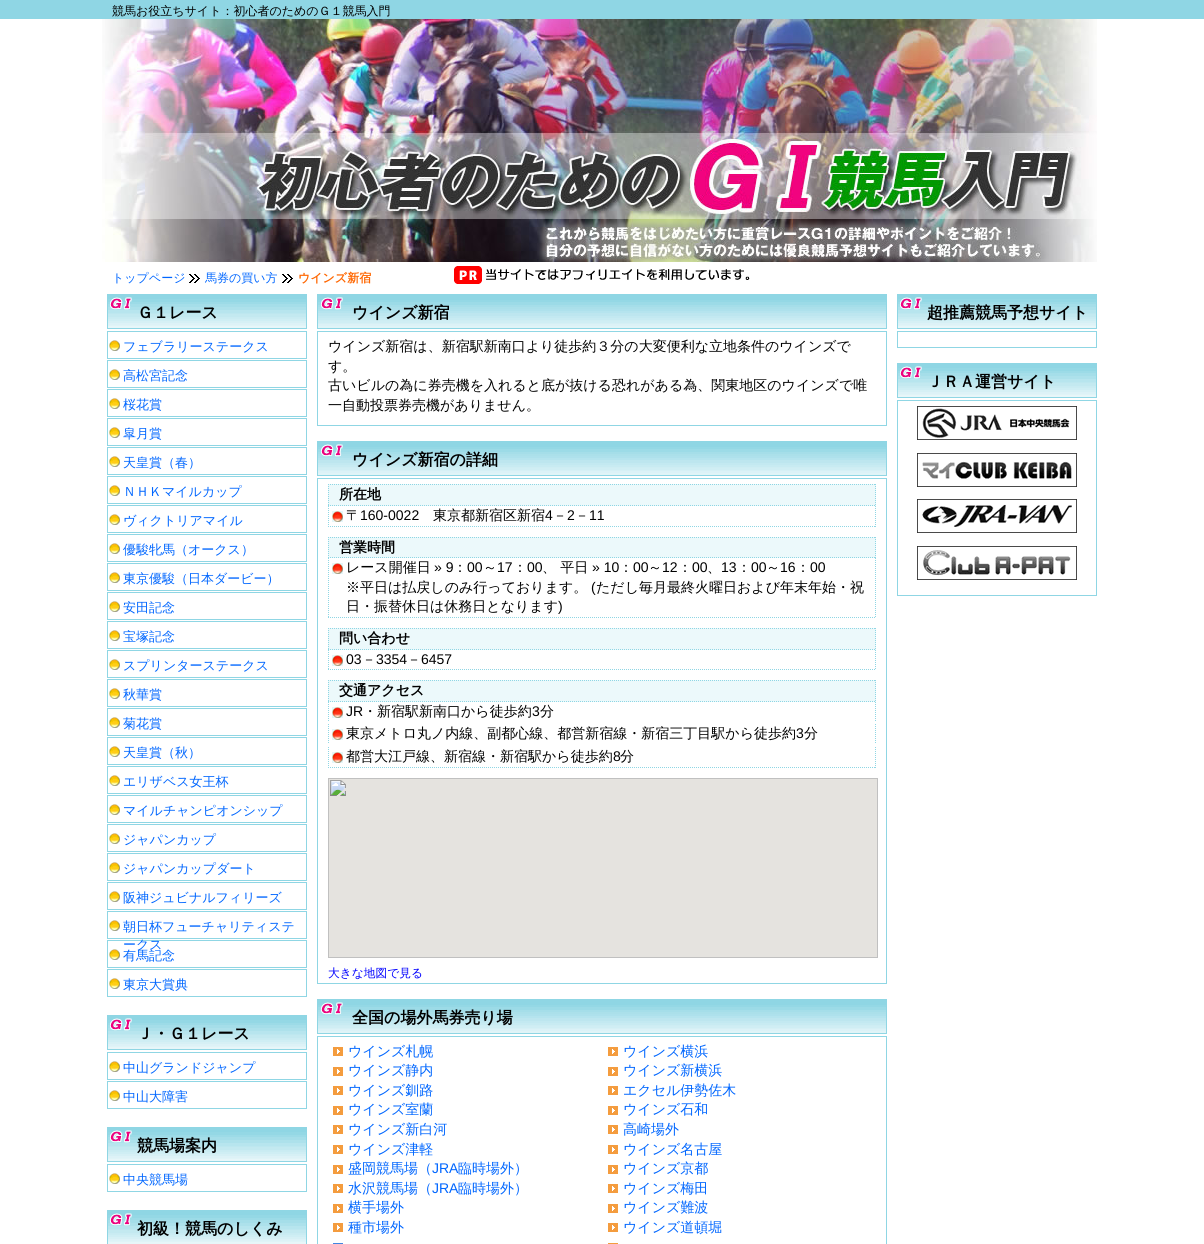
import math
import cairo


def use_color(cr, r, g, b):
  cr.set_source_rgb(r / 255, g / 255, b / 255)

def text(cr, x, y, s, family, size, color, bold=False, italic=False):
  cr.select_font_face(family, cairo.FONT_SLANT_ITALIC if italic else cairo.FONT_SLANT_NORMAL, cairo.FONT_WEIGHT_BOLD if bold else cairo.FONT_WEIGHT_NORMAL)
  cr.set_font_size(size)
  use_color(cr, *color)
  cr.move_to(x, y)
  cr.show_text(s)

def box(cr, x, y, w, h, *color):
  use_color(cr, *color)
  cr.rectangle(x, y, w, h)
  cr.fill()

def picture(cr, path, x, y, w, h):
  cr.save()
  cr.set_source_surface(cairo.ImageSurface.create_from_png(path), x, y)
  cr.rectangle(x, y, w, h)
  cr.fill()
  cr.restore()

def draw(cr):
  use_color(cr, 255, 255, 255)
  cr.paint()
  box(cr, 0, 0, 1204, 19, 143, 214, 228)
  picture(cr, "img_01.png", 102, 19, 995, 243)
  picture(cr, "img_02.png", 454, 266, 296, 18)
  picture(cr, "img_03.png", 189, 274, 11, 9)
  picture(cr, "img_03.png", 282, 274, 11, 9)
  picture(cr, "img_04.png", 107, 294, 200, 35)
  picture(cr, "img_05.png", 109, 340, 11, 11)
  cr.rectangle(107.5, 331.5, 199, 27)
  cr.set_line_width(1)
  cr.stroke()
  picture(cr, "img_05.png", 109, 369, 11, 11)
  cr.rectangle(107.5, 360.5, 199, 27)
  cr.stroke()
  picture(cr, "img_05.png", 109, 398, 11, 11)
  cr.rectangle(107.5, 389.5, 199, 27)
  cr.stroke()
  picture(cr, "img_05.png", 109, 427, 11, 11)
  cr.rectangle(107.5, 418.5, 199, 27)
  cr.stroke()
  picture(cr, "img_05.png", 109, 456, 11, 11)
  cr.rectangle(107.5, 447.5, 199, 27)
  cr.stroke()
  picture(cr, "img_05.png", 109, 485, 11, 11)
  cr.rectangle(107.5, 476.5, 199, 27)
  cr.stroke()
  picture(cr, "img_05.png", 109, 514, 11, 11)
  cr.rectangle(107.5, 505.5, 199, 27)
  cr.stroke()
  picture(cr, "img_05.png", 109, 543, 11, 11)
  cr.rectangle(107.5, 534.5, 199, 27)
  cr.stroke()
  picture(cr, "img_05.png", 109, 572, 11, 11)
  cr.rectangle(107.5, 563.5, 199, 27)
  cr.stroke()
  picture(cr, "img_05.png", 109, 601, 11, 11)
  cr.rectangle(107.5, 592.5, 199, 27)
  cr.stroke()
  picture(cr, "img_05.png", 109, 630, 11, 11)
  cr.rectangle(107.5, 621.5, 199, 27)
  cr.stroke()
  picture(cr, "img_05.png", 109, 659, 11, 11)
  cr.rectangle(107.5, 650.5, 199, 27)
  cr.stroke()
  picture(cr, "img_05.png", 109, 688, 11, 11)
  cr.rectangle(107.5, 679.5, 199, 27)
  cr.stroke()
  picture(cr, "img_05.png", 109, 717, 11, 11)
  cr.rectangle(107.5, 708.5, 199, 27)
  cr.stroke()
  picture(cr, "img_05.png", 109, 746, 11, 11)
  cr.rectangle(107.5, 737.5, 199, 27)
  cr.stroke()
  picture(cr, "img_05.png", 109, 775, 11, 11)
  cr.rectangle(107.5, 766.5, 199, 27)
  cr.stroke()
  picture(cr, "img_05.png", 109, 804, 11, 11)
  cr.rectangle(107.5, 795.5, 199, 27)
  cr.stroke()
  picture(cr, "img_05.png", 109, 833, 11, 11)
  cr.rectangle(107.5, 824.5, 199, 27)
  cr.stroke()
  picture(cr, "img_05.png", 109, 862, 11, 11)
  cr.rectangle(107.5, 853.5, 199, 27)
  cr.stroke()
  picture(cr, "img_05.png", 109, 891, 11, 11)
  cr.rectangle(107.5, 882.5, 199, 27)
  cr.stroke()
  picture(cr, "img_05.png", 109, 920, 11, 11)
  cr.rectangle(107.5, 911.5, 199, 27)
  cr.stroke()
  picture(cr, "img_05.png", 109, 949, 11, 11)
  cr.rectangle(107.5, 940.5, 199, 27)
  cr.stroke()
  picture(cr, "img_05.png", 109, 978, 11, 11)
  cr.rectangle(107.5, 969.5, 199, 27)
  cr.stroke()
  picture(cr, "img_04.png", 107, 1015, 200, 35)
  picture(cr, "img_05.png", 109, 1061, 11, 11)
  cr.rectangle(107.5, 1052.5, 199, 27)
  cr.stroke()
  picture(cr, "img_05.png", 109, 1090, 11, 11)
  cr.rectangle(107.5, 1081.5, 199, 27)
  cr.stroke()
  picture(cr, "img_04.png", 107, 1127, 200, 35)
  picture(cr, "img_05.png", 109, 1173, 11, 11)
  cr.rectangle(107.5, 1164.5, 199, 27)
  cr.stroke()
  picture(cr, "img_06.png", 107, 1210, 200, 34)
  picture(cr, "img_07.png", 317, 294, 570, 35)
  cr.rectangle(317.5, 331.5, 569, 94)
  cr.stroke()
  picture(cr, "img_07.png", 317, 441, 570, 35)
  cr.rectangle(317.5, 478.5, 569, 505)
  cr.stroke()
  box(cr, 328, 484, 548, 22, 236, 249, 251)
  cr.new_path()
  cr.move_to(328, 484.5)
  cr.line_to(876, 484.5)
  use_color(cr, 143, 214, 228)
  cr.set_dash([1, 1])
  cr.stroke()
  cr.new_path()
  cr.move_to(875.5, 484)
  cr.line_to(875.5, 506)
  cr.stroke()
  cr.new_path()
  cr.move_to(328, 505.5)
  cr.line_to(876, 505.5)
  cr.stroke()
  cr.new_path()
  cr.move_to(328.5, 484)
  cr.line_to(328.5, 506)
  cr.stroke()
  picture(cr, "img_08.png", 332, 511, 11, 11)
  cr.new_path()
  cr.move_to(875.5, 506)
  cr.line_to(875.5, 527)
  cr.stroke()
  cr.new_path()
  cr.move_to(328, 526.5)
  cr.line_to(876, 526.5)
  cr.stroke()
  cr.new_path()
  cr.move_to(328.5, 506)
  cr.line_to(328.5, 527)
  cr.stroke()
  box(cr, 328, 537, 548, 21, 236, 249, 251)
  cr.new_path()
  cr.move_to(328, 537.5)
  cr.line_to(876, 537.5)
  use_color(cr, 143, 214, 228)
  cr.stroke()
  cr.new_path()
  cr.move_to(875.5, 537)
  cr.line_to(875.5, 558)
  cr.stroke()
  cr.new_path()
  cr.move_to(328, 557.5)
  cr.line_to(876, 557.5)
  cr.stroke()
  cr.new_path()
  cr.move_to(328.5, 537)
  cr.line_to(328.5, 558)
  cr.stroke()
  picture(cr, "img_08.png", 332, 563, 11, 11)
  cr.new_path()
  cr.move_to(875.5, 558)
  cr.line_to(875.5, 618)
  cr.stroke()
  cr.new_path()
  cr.move_to(328, 617.5)
  cr.line_to(876, 617.5)
  cr.stroke()
  cr.new_path()
  cr.move_to(328.5, 558)
  cr.line_to(328.5, 618)
  cr.stroke()
  box(cr, 328, 628, 548, 22, 236, 249, 251)
  cr.new_path()
  cr.move_to(328, 628.5)
  cr.line_to(876, 628.5)
  use_color(cr, 143, 214, 228)
  cr.stroke()
  cr.new_path()
  cr.move_to(875.5, 628)
  cr.line_to(875.5, 650)
  cr.stroke()
  cr.new_path()
  cr.move_to(328, 649.5)
  cr.line_to(876, 649.5)
  cr.stroke()
  cr.new_path()
  cr.move_to(328.5, 628)
  cr.line_to(328.5, 650)
  cr.stroke()
  picture(cr, "img_08.png", 332, 655, 11, 11)
  cr.new_path()
  cr.move_to(875.5, 650)
  cr.line_to(875.5, 670)
  cr.stroke()
  cr.new_path()
  cr.move_to(328, 669.5)
  cr.line_to(876, 669.5)
  cr.stroke()
  cr.new_path()
  cr.move_to(328.5, 650)
  cr.line_to(328.5, 670)
  cr.stroke()
  box(cr, 328, 680, 548, 22, 236, 249, 251)
  cr.new_path()
  cr.move_to(328, 680.5)
  cr.line_to(876, 680.5)
  use_color(cr, 143, 214, 228)
  cr.stroke()
  cr.new_path()
  cr.move_to(875.5, 680)
  cr.line_to(875.5, 702)
  cr.stroke()
  cr.new_path()
  cr.move_to(328, 701.5)
  cr.line_to(876, 701.5)
  cr.stroke()
  cr.new_path()
  cr.move_to(328.5, 680)
  cr.line_to(328.5, 702)
  cr.stroke()
  picture(cr, "img_08.png", 332, 707, 11, 11)
  cr.new_path()
  cr.move_to(875.5, 702)
  cr.line_to(875.5, 721)
  cr.stroke()
  cr.new_path()
  cr.move_to(328.5, 702)
  cr.line_to(328.5, 721)
  cr.stroke()
  picture(cr, "img_08.png", 332, 729, 11, 11)
  cr.new_path()
  cr.move_to(875.5, 724)
  cr.line_to(875.5, 744)
  cr.stroke()
  cr.new_path()
  cr.move_to(328.5, 724)
  cr.line_to(328.5, 744)
  cr.stroke()
  picture(cr, "img_08.png", 332, 752, 11, 11)
  cr.new_path()
  cr.move_to(875.5, 747)
  cr.line_to(875.5, 768)
  cr.stroke()
  cr.new_path()
  cr.move_to(328, 767.5)
  cr.line_to(876, 767.5)
  cr.stroke()
  cr.new_path()
  cr.move_to(328.5, 747)
  cr.line_to(328.5, 768)
  cr.stroke()
  picture(cr, "img_09.png", 328, 778, 550, 180)
  picture(cr, "img_07.png", 317, 999, 570, 35)
  cr.rectangle(317.5, 1036.5, 569, 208)
  cr.set_dash([])
  cr.stroke()
  picture(cr, "img_10.png", 333, 1047, 10, 9)
  picture(cr, "img_10.png", 333, 1067, 10, 9)
  picture(cr, "img_10.png", 333, 1086, 10, 9)
  picture(cr, "img_10.png", 333, 1106, 10, 9)
  picture(cr, "img_10.png", 333, 1125, 10, 9)
  picture(cr, "img_10.png", 333, 1145, 10, 9)
  picture(cr, "img_10.png", 333, 1165, 10, 9)
  picture(cr, "img_10.png", 333, 1184, 10, 9)
  picture(cr, "img_10.png", 333, 1204, 10, 9)
  picture(cr, "img_10.png", 333, 1223, 10, 9)
  box(cr, 333, 1243, 10, 1, 65, 133, 225)
  picture(cr, "img_10.png", 608, 1047, 10, 9)
  picture(cr, "img_10.png", 608, 1067, 10, 9)
  picture(cr, "img_10.png", 608, 1086, 10, 9)
  picture(cr, "img_10.png", 608, 1106, 10, 9)
  picture(cr, "img_10.png", 608, 1125, 10, 9)
  picture(cr, "img_10.png", 608, 1145, 10, 9)
  picture(cr, "img_10.png", 608, 1165, 10, 9)
  picture(cr, "img_10.png", 608, 1184, 10, 9)
  picture(cr, "img_10.png", 608, 1204, 10, 9)
  picture(cr, "img_10.png", 608, 1223, 10, 9)
  box(cr, 608, 1243, 10, 1, 244, 156, 62)
  picture(cr, "img_04.png", 897, 294, 200, 35)
  cr.rectangle(897.5, 331.5, 199, 16)
  use_color(cr, 143, 214, 228)
  cr.stroke()
  picture(cr, "img_04.png", 897, 363, 200, 35)
  cr.rectangle(897.5, 400.5, 199, 195)
  cr.stroke()
  picture(cr, "img_11.png", 917, 406, 160, 34)
  picture(cr, "img_12.png", 917, 453, 160, 34)
  picture(cr, "img_13.png", 917, 499, 160, 34)
  picture(cr, "img_14.png", 917, 546, 160, 34)
  text(cr, 112, 15, "競馬お役立ちサイト：初心者のためのＧ１競馬入門", "WenQuanYi Zen Hei Medium", 12, (0, 0, 0))
  text(cr, 112, 282, "トップページ", "WenQuanYi Zen Hei Medium", 12, (0, 102, 255))
  text(cr, 205, 282, "馬券の買い方", "WenQuanYi Zen Hei Medium", 12, (0, 102, 255))
  text(cr, 298, 282, "ウインズ新宿", "WenQuanYi Zen Hei", 12, (255, 102, 0), bold=True)
  text(cr, 137, 318, "Ｇ１レース", "WenQuanYi Zen Hei", 16, (0, 0, 0), bold=True)
  text(cr, 123, 351, "フェブラリーステークス", "WenQuanYi Zen Hei Medium", 13, (0, 102, 255))
  text(cr, 123, 380, "高松宮記念", "WenQuanYi Zen Hei Medium", 13, (0, 102, 255))
  text(cr, 123, 409, "桜花賞", "WenQuanYi Zen Hei Medium", 13, (0, 102, 255))
  text(cr, 123, 438, "皐月賞", "WenQuanYi Zen Hei Medium", 13, (0, 102, 255))
  text(cr, 123, 467, "天皇賞（春）", "WenQuanYi Zen Hei Medium", 13, (0, 102, 255))
  text(cr, 123, 496, "ＮＨＫマイルカップ", "WenQuanYi Zen Hei Medium", 13, (0, 102, 255))
  text(cr, 123, 525, "ヴィクトリアマイル", "WenQuanYi Zen Hei Medium", 13, (0, 102, 255))
  text(cr, 123, 554, "優駿牝馬（オークス）", "WenQuanYi Zen Hei Medium", 13, (0, 102, 255))
  text(cr, 123, 583, "東京優駿（日本ダービー）", "WenQuanYi Zen Hei Medium", 13, (0, 102, 255))
  text(cr, 123, 612, "安田記念", "WenQuanYi Zen Hei Medium", 13, (0, 102, 255))
  text(cr, 123, 641, "宝塚記念", "WenQuanYi Zen Hei Medium", 13, (0, 102, 255))
  text(cr, 123, 670, "スプリンターステークス", "WenQuanYi Zen Hei Medium", 13, (0, 102, 255))
  text(cr, 123, 699, "秋華賞", "WenQuanYi Zen Hei Medium", 13, (0, 102, 255))
  text(cr, 123, 728, "菊花賞", "WenQuanYi Zen Hei Medium", 13, (0, 102, 255))
  text(cr, 123, 757, "天皇賞（秋）", "WenQuanYi Zen Hei Medium", 13, (0, 102, 255))
  text(cr, 123, 786, "エリザベス女王杯", "WenQuanYi Zen Hei Medium", 13, (0, 102, 255))
  text(cr, 123, 815, "マイルチャンピオンシップ", "WenQuanYi Zen Hei Medium", 13, (0, 102, 255))
  text(cr, 123, 844, "ジャパンカップ", "WenQuanYi Zen Hei Medium", 13, (0, 102, 255))
  text(cr, 123, 873, "ジャパンカップダート", "WenQuanYi Zen Hei Medium", 13, (0, 102, 255))
  text(cr, 123, 902, "阪神ジュビナルフィリーズ", "WenQuanYi Zen Hei Medium", 13, (0, 102, 255))
  text(cr, 123, 931, "朝日杯フューチャリティステ", "WenQuanYi Zen Hei Medium", 13, (0, 102, 255))
  text(cr, 123, 949, "ークス", "WenQuanYi Zen Hei Medium", 13, (0, 102, 255))
  text(cr, 123, 960, "有馬記念", "WenQuanYi Zen Hei Medium", 13, (0, 102, 255))
  text(cr, 123, 989, "東京大賞典", "WenQuanYi Zen Hei Medium", 13, (0, 102, 255))
  text(cr, 137, 1039, "Ｊ・Ｇ１レース", "WenQuanYi Zen Hei", 16, (0, 0, 0), bold=True)
  text(cr, 123, 1072, "中山グランドジャンプ", "WenQuanYi Zen Hei Medium", 13, (0, 102, 255))
  text(cr, 123, 1101, "中山大障害", "WenQuanYi Zen Hei Medium", 13, (0, 102, 255))
  text(cr, 137, 1151, "競馬場案内", "WenQuanYi Zen Hei", 16, (0, 0, 0), bold=True)
  text(cr, 123, 1184, "中央競馬場", "WenQuanYi Zen Hei Medium", 13, (0, 102, 255))
  text(cr, 137, 1234, "初級！競馬のしくみ", "WenQuanYi Zen Hei", 16, (0, 0, 0), bold=True)
  text(cr, 352, 318, "ウインズ新宿", "WenQuanYi Zen Hei", 16, (0, 0, 0), bold=True)
  text(cr, 328, 351, "ウインズ新宿は、新宿駅新南口より徒歩約３分の大変便利な立地条件のウインズで", "WenQuanYi Zen Hei Medium", 14, (0, 0, 0))
  text(cr, 328, 371, "す。", "WenQuanYi Zen Hei Medium", 14, (0, 0, 0))
  text(cr, 328, 390, "古いビルの為に券売機を入れると底が抜ける恐れがある為、関東地区のウインズで唯", "WenQuanYi Zen Hei Medium", 14, (0, 0, 0))
  text(cr, 328, 410, "一自動投票券売機がありません。", "WenQuanYi Zen Hei Medium", 14, (0, 0, 0))
  text(cr, 352, 465, "ウインズ新宿の詳細", "WenQuanYi Zen Hei", 16, (0, 0, 0), bold=True)
  text(cr, 339, 499, "所在地", "WenQuanYi Zen Hei", 14, (0, 0, 0), bold=True)
  text(cr, 346, 520, "〒", "WenQuanYi Zen Hei Medium", 14, (0, 0, 0))
  text(cr, 360, 520, "160-0022", "Liberation Sans", 14, (0, 0, 0))
  text(cr, 433, 520, "東京都新宿区新宿", "WenQuanYi Zen Hei Medium", 14, (0, 0, 0))
  text(cr, 545, 520, "4", "Liberation Sans", 14, (0, 0, 0))
  text(cr, 553, 520, "－", "WenQuanYi Zen Hei Medium", 14, (0, 0, 0))
  text(cr, 567, 520, "2", "Liberation Sans", 14, (0, 0, 0))
  text(cr, 575, 520, "－", "WenQuanYi Zen Hei Medium", 14, (0, 0, 0))
  text(cr, 589, 520, "11", "Liberation Sans", 14, (0, 0, 0))
  text(cr, 339, 552, "営業時間", "WenQuanYi Zen Hei", 14, (0, 0, 0), bold=True)
  text(cr, 346, 572, "レース開催日", "WenQuanYi Zen Hei Medium", 14, (0, 0, 0))
  text(cr, 434, 572, "» 9", "Liberation Sans", 14, (0, 0, 0))
  text(cr, 453, 572, "：", "WenQuanYi Zen Hei Medium", 14, (0, 0, 0))
  text(cr, 467, 572, "00", "Liberation Sans", 14, (0, 0, 0))
  text(cr, 483, 572, "～", "WenQuanYi Zen Hei Medium", 14, (0, 0, 0))
  text(cr, 497, 572, "17", "Liberation Sans", 14, (0, 0, 0))
  text(cr, 513, 572, "：", "WenQuanYi Zen Hei Medium", 14, (0, 0, 0))
  text(cr, 527, 572, "00", "Liberation Sans", 14, (0, 0, 0))
  text(cr, 542, 572, "、 平日", "WenQuanYi Zen Hei Medium", 14, (0, 0, 0))
  text(cr, 592, 572, "» 10", "Liberation Sans", 14, (0, 0, 0))
  text(cr, 619, 572, "：", "WenQuanYi Zen Hei Medium", 14, (0, 0, 0))
  text(cr, 633, 572, "00", "Liberation Sans", 14, (0, 0, 0))
  text(cr, 648, 572, "～", "WenQuanYi Zen Hei Medium", 14, (0, 0, 0))
  text(cr, 662, 572, "12", "Liberation Sans", 14, (0, 0, 0))
  text(cr, 678, 572, "：", "WenQuanYi Zen Hei Medium", 14, (0, 0, 0))
  text(cr, 692, 572, "00", "Liberation Sans", 14, (0, 0, 0))
  text(cr, 721, 572, "13", "Liberation Sans", 14, (0, 0, 0))
  text(cr, 737, 572, "：", "WenQuanYi Zen Hei Medium", 14, (0, 0, 0))
  text(cr, 751, 572, "00", "Liberation Sans", 14, (0, 0, 0))
  text(cr, 766, 572, "～", "WenQuanYi Zen Hei Medium", 14, (0, 0, 0))
  text(cr, 780, 572, "16", "Liberation Sans", 14, (0, 0, 0))
  text(cr, 796, 572, "：", "WenQuanYi Zen Hei Medium", 14, (0, 0, 0))
  text(cr, 810, 572, "00", "Liberation Sans", 14, (0, 0, 0))
  text(cr, 707, 572, "、", "WenQuanYi Zen Hei Medium", 14, (0, 0, 0))
  text(cr, 346, 592, "※平日は払戻しのみ行っております。", "WenQuanYi Zen Hei Medium", 14, (0, 0, 0))
  text(cr, 591, 592, "(", "Liberation Sans", 14, (0, 0, 0))
  text(cr, 596, 592, "ただし毎月最終火曜日および年末年始・祝", "WenQuanYi Zen Hei Medium", 14, (0, 0, 0))
  text(cr, 346, 611, "日・振替休日は休務日となります", "WenQuanYi Zen Hei Medium", 14, (0, 0, 0))
  text(cr, 558, 611, ")", "Liberation Sans", 14, (0, 0, 0))
  text(cr, 339, 643, "問い合わせ", "WenQuanYi Zen Hei", 14, (0, 0, 0), bold=True)
  text(cr, 346, 664, "03", "Liberation Sans", 14, (0, 0, 0))
  text(cr, 362, 664, "－", "WenQuanYi Zen Hei Medium", 14, (0, 0, 0))
  text(cr, 376, 664, "3354", "Liberation Sans", 14, (0, 0, 0))
  text(cr, 407, 664, "－", "WenQuanYi Zen Hei Medium", 14, (0, 0, 0))
  text(cr, 421, 664, "6457", "Liberation Sans", 14, (0, 0, 0))
  text(cr, 339, 695, "交通アクセス", "WenQuanYi Zen Hei", 14, (0, 0, 0), bold=True)
  text(cr, 346, 716, "JR", "Liberation Sans", 14, (0, 0, 0))
  text(cr, 363, 716, "・新宿駅新南口から徒歩約", "WenQuanYi Zen Hei Medium", 14, (0, 0, 0))
  text(cr, 532, 716, "3", "Liberation Sans", 14, (0, 0, 0))
  text(cr, 540, 716, "分", "WenQuanYi Zen Hei Medium", 14, (0, 0, 0))
  text(cr, 346, 738, "東京メトロ丸ノ内線、副都心線、都営新宿線・新宿三丁目駅から徒歩約", "WenQuanYi Zen Hei Medium", 14, (0, 0, 0))
  text(cr, 796, 738, "3", "Liberation Sans", 14, (0, 0, 0))
  text(cr, 804, 738, "分", "WenQuanYi Zen Hei Medium", 14, (0, 0, 0))
  text(cr, 346, 761, "都営大江戸線、新宿線・新宿駅から徒歩約", "WenQuanYi Zen Hei Medium", 14, (0, 0, 0))
  text(cr, 613, 761, "8", "Liberation Sans", 14, (0, 0, 0))
  text(cr, 620, 761, "分", "WenQuanYi Zen Hei Medium", 14, (0, 0, 0))
  text(cr, 328, 977, "大きな地図で見る", "WenQuanYi Zen Hei Medium", 11.75, (0, 0, 255))
  text(cr, 352, 1023, "全国の場外馬券売り場", "WenQuanYi Zen Hei", 16, (0, 0, 0), bold=True)
  text(cr, 348, 1056, "ウインズ札幌", "WenQuanYi Zen Hei Medium", 14, (0, 102, 255))
  text(cr, 348, 1075, "ウインズ静内", "WenQuanYi Zen Hei Medium", 14, (0, 102, 255))
  text(cr, 348, 1095, "ウインズ釧路", "WenQuanYi Zen Hei Medium", 14, (0, 102, 255))
  text(cr, 348, 1114, "ウインズ室蘭", "WenQuanYi Zen Hei Medium", 14, (0, 102, 255))
  text(cr, 348, 1134, "ウインズ新白河", "WenQuanYi Zen Hei Medium", 14, (0, 102, 255))
  text(cr, 348, 1154, "ウインズ津軽", "WenQuanYi Zen Hei Medium", 14, (0, 102, 255))
  text(cr, 348, 1173, "盛岡競馬場（", "WenQuanYi Zen Hei Medium", 14, (0, 102, 255))
  text(cr, 432, 1173, "JRA", "Liberation Sans", 14, (0, 102, 255))
  text(cr, 458, 1173, "臨時場外）", "WenQuanYi Zen Hei Medium", 14, (0, 102, 255))
  text(cr, 348, 1193, "水沢競馬場（", "WenQuanYi Zen Hei Medium", 14, (0, 102, 255))
  text(cr, 432, 1193, "JRA", "Liberation Sans", 14, (0, 102, 255))
  text(cr, 458, 1193, "臨時場外）", "WenQuanYi Zen Hei Medium", 14, (0, 102, 255))
  text(cr, 348, 1212, "横手場外", "WenQuanYi Zen Hei Medium", 14, (0, 102, 255))
  text(cr, 348, 1232, "種市場外", "WenQuanYi Zen Hei Medium", 14, (0, 102, 255))
  text(cr, 623, 1056, "ウインズ横浜", "WenQuanYi Zen Hei Medium", 14, (0, 102, 255))
  text(cr, 623, 1075, "ウインズ新横浜", "WenQuanYi Zen Hei Medium", 14, (0, 102, 255))
  text(cr, 623, 1095, "エクセル伊勢佐木", "WenQuanYi Zen Hei Medium", 14, (0, 102, 255))
  text(cr, 623, 1114, "ウインズ石和", "WenQuanYi Zen Hei Medium", 14, (0, 102, 255))
  text(cr, 623, 1134, "高崎場外", "WenQuanYi Zen Hei Medium", 14, (0, 102, 255))
  text(cr, 623, 1154, "ウインズ名古屋", "WenQuanYi Zen Hei Medium", 14, (0, 102, 255))
  text(cr, 623, 1173, "ウインズ京都", "WenQuanYi Zen Hei Medium", 14, (0, 102, 255))
  text(cr, 623, 1193, "ウインズ梅田", "WenQuanYi Zen Hei Medium", 14, (0, 102, 255))
  text(cr, 623, 1212, "ウインズ難波", "WenQuanYi Zen Hei Medium", 14, (0, 102, 255))
  text(cr, 623, 1232, "ウインズ道頓堀", "WenQuanYi Zen Hei Medium", 14, (0, 102, 255))
  text(cr, 927, 318, "超推薦競馬予想サイト", "WenQuanYi Zen Hei", 16, (0, 0, 0), bold=True)
  text(cr, 927, 387, "ＪＲＡ運営サイト", "WenQuanYi Zen Hei", 16, (0, 0, 0), bold=True)


surface = cairo.ImageSurface(cairo.FORMAT_RGB24, 1204, 1244)
cr = cairo.Context(surface)
options = cairo.FontOptions()
options.set_hint_metrics(cairo.HINT_METRICS_OFF)
options.set_hint_style(cairo.HINT_STYLE_NONE)
cr.set_font_options(options)
cr.set_miter_limit(4)
draw(cr)
surface.write_to_png("out.png")
